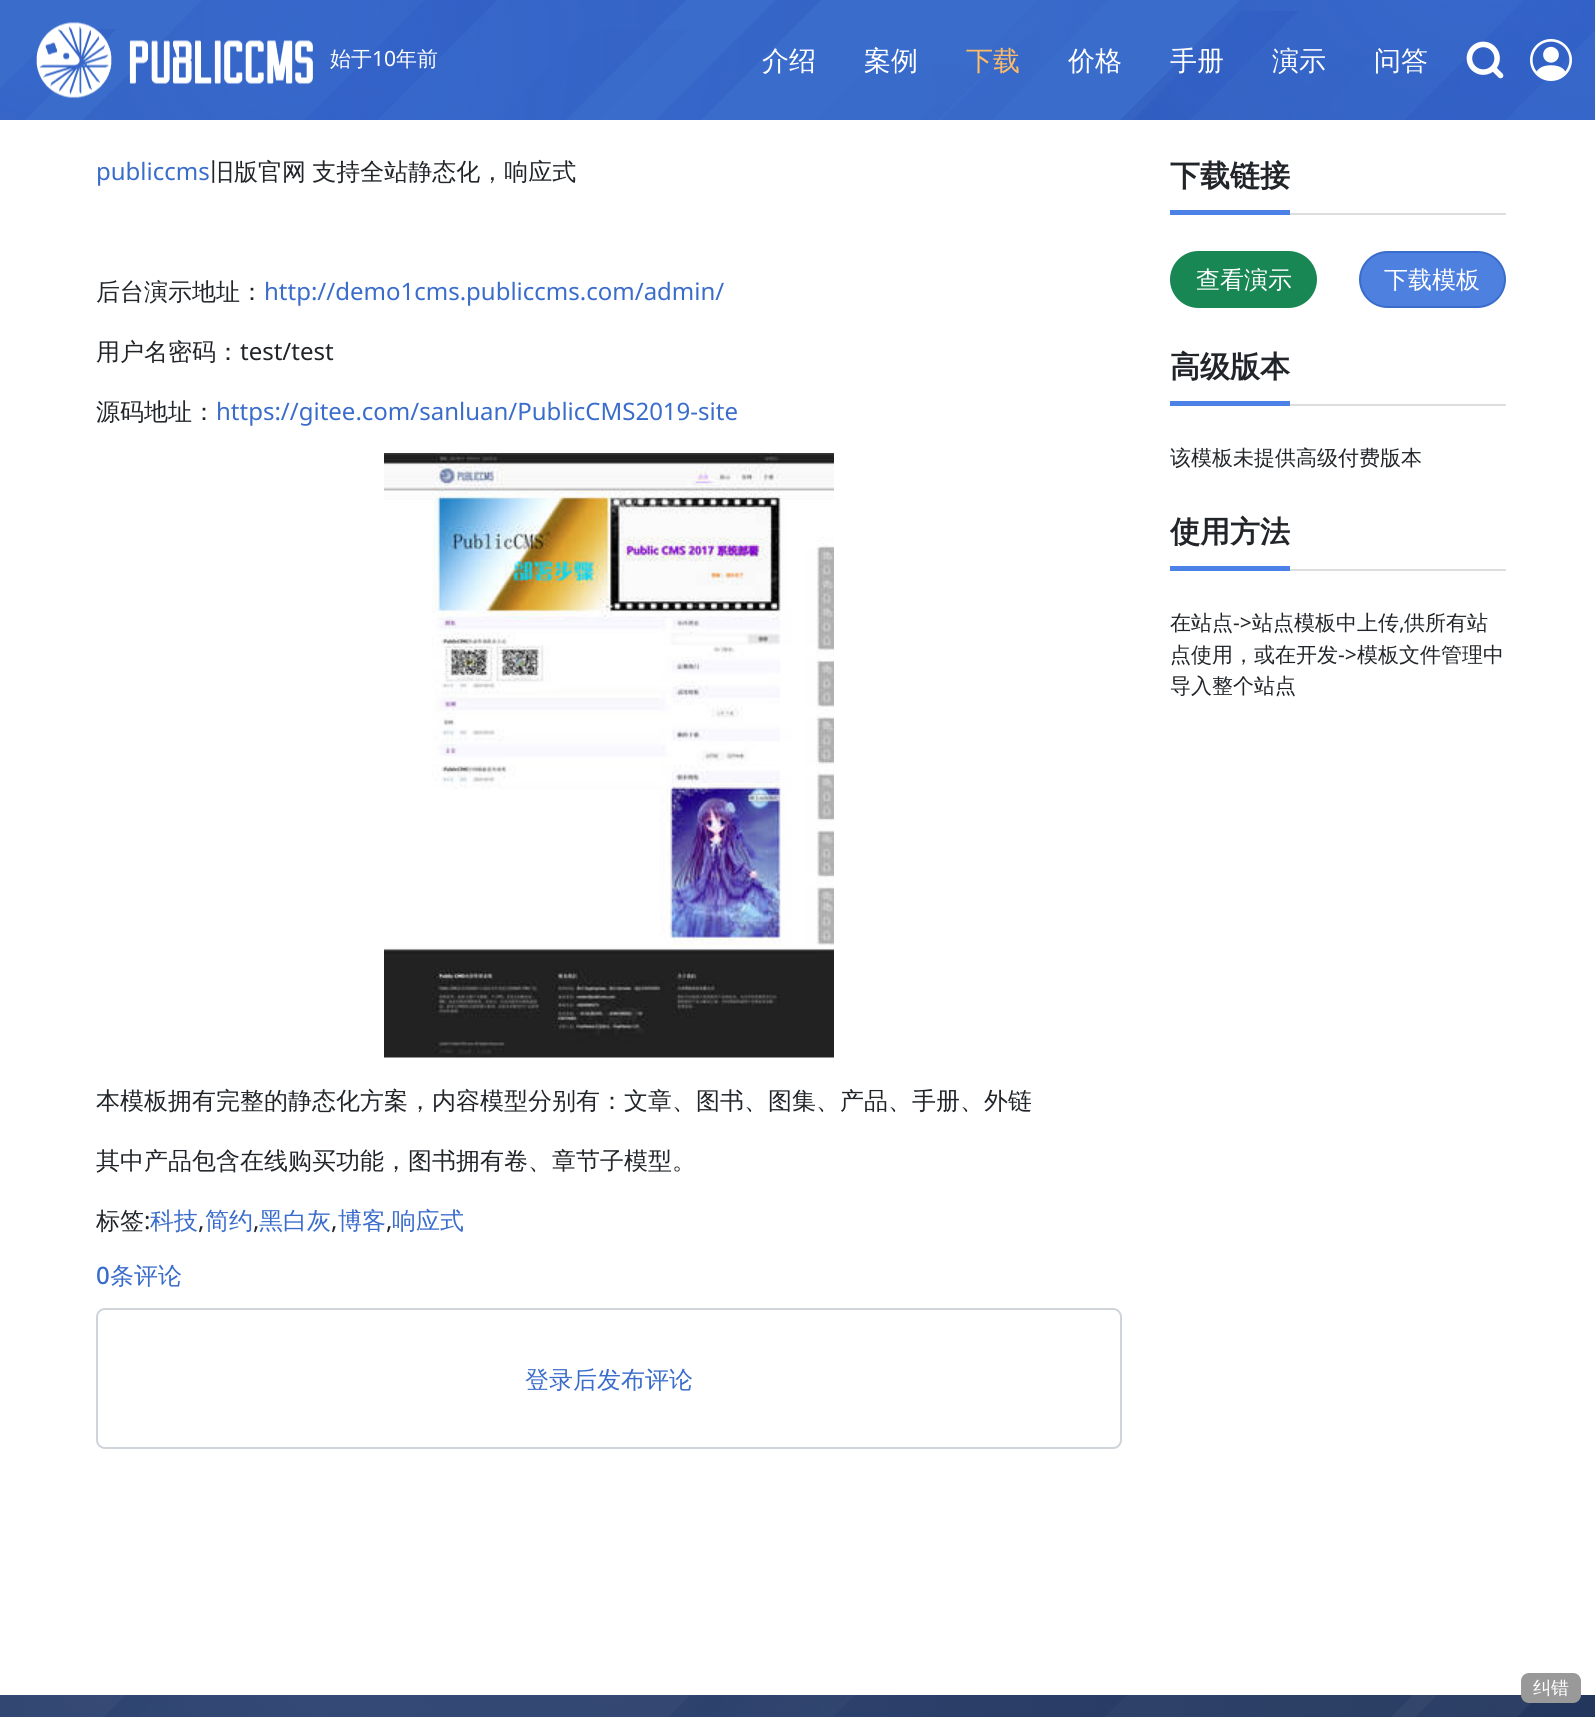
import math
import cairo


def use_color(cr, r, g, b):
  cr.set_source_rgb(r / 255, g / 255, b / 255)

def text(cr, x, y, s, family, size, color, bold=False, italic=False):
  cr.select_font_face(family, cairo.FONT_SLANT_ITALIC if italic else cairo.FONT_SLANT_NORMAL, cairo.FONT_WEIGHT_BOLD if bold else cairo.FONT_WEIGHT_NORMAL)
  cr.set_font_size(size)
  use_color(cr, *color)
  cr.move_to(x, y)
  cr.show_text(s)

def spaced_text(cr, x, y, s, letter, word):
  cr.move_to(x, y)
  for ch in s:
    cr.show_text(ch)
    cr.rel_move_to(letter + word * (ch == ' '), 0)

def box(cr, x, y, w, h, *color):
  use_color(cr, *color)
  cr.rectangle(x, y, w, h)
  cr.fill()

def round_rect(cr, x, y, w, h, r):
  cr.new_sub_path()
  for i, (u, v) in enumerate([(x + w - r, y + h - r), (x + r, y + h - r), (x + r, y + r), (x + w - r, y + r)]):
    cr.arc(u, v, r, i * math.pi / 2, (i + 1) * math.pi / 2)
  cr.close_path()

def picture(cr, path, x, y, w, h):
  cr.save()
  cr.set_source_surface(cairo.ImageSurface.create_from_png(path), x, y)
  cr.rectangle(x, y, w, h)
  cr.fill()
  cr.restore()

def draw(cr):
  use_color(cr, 255, 255, 255)
  cr.paint()
  box(cr, 0, 0, 1595, 120, 58, 108, 203)
  picture(cr, "img_01.png", 0, 0, 1595, 120)
  picture(cr, "img_02.png", 36, 22, 277, 76)
  picture(cr, "img_03.png", 1466, 41, 38, 38)
  picture(cr, "img_04.png", 1530, 39, 42, 42)
  picture(cr, "img_05.png", 384, 453, 450, 605)
  round_rect(cr, 97, 1309, 1024, 139, 8)
  use_color(cr, 206, 212, 218)
  cr.stroke()
  box(cr, 1290, 213, 216, 2, 221, 221, 221)
  box(cr, 1170, 210, 120, 5, 76, 129, 231)
  use_color(cr, 25, 135, 84)
  round_rect(cr, 1171, 252, 145, 55, 27.5)
  cr.fill_preserve()
  cr.stroke()
  use_color(cr, 78, 128, 224)
  round_rect(cr, 1360, 252, 145, 55, 27.5)
  cr.fill_preserve()
  use_color(cr, 58, 108, 203)
  cr.stroke()
  box(cr, 1290, 404, 216, 2, 221, 221, 221)
  box(cr, 1170, 401, 120, 5, 76, 129, 231)
  box(cr, 1290, 569, 216, 2, 221, 221, 221)
  box(cr, 1170, 566, 120, 5, 76, 129, 231)
  picture(cr, "img_06.png", 0, 1695, 1595, 22)
  use_color(cr, 153, 153, 153)
  round_rect(cr, 1521, 1673, 60, 30, 8)
  cr.fill()
  text(cr, 330, 66, "始于", "WenQuanYi Zen Hei Medium", 21, (255, 255, 255))
  text(cr, 372, 66, "10", "Noto Sans", 21, (255, 255, 255))
  text(cr, 396, 66, "年前", "WenQuanYi Zen Hei Medium", 21, (255, 255, 255))
  text(cr, 762, 70, "介绍", "WenQuanYi Zen Hei Medium", 27, (255, 255, 255))
  text(cr, 864, 70, "案例", "WenQuanYi Zen Hei Medium", 27, (255, 255, 255))
  text(cr, 966, 70, "下载", "WenQuanYi Zen Hei Medium", 27, (255, 187, 102))
  text(cr, 1068, 70, "价格", "WenQuanYi Zen Hei Medium", 27, (255, 255, 255))
  text(cr, 1170, 70, "手册", "WenQuanYi Zen Hei Medium", 27, (255, 255, 255))
  text(cr, 1272, 70, "演示", "WenQuanYi Zen Hei Medium", 27, (255, 255, 255))
  text(cr, 1374, 70, "问答", "WenQuanYi Zen Hei Medium", 27, (255, 255, 255))
  text(cr, 96, 180, "publiccms", "Noto Sans", 24, (58, 108, 203))
  cr.select_font_face("WenQuanYi Zen Hei Medium")
  use_color(cr, 33, 37, 41)
  spaced_text(cr, 210, 180, "旧版官网 支持全站静态化，响应式", 0, -1)
  text(cr, 96, 300, "后台演示地址：", "WenQuanYi Zen Hei Medium", 24, (33, 37, 41))
  text(cr, 264, 300, "http://demo1cms.publiccms.com/admin/", "Noto Sans", 24, (58, 108, 203))
  text(cr, 96, 360, "用户名密码：", "WenQuanYi Zen Hei Medium", 24, (33, 37, 41))
  text(cr, 240, 360, "test/test", "Noto Sans", 24, (33, 37, 41))
  text(cr, 96, 420, "源码地址：", "WenQuanYi Zen Hei Medium", 24, (33, 37, 41))
  text(cr, 216, 420, "https://gitee.com/sanluan/PublicCMS2019-site", "Noto Sans", 24, (58, 108, 203))
  text(cr, 96, 1109, "本模板拥有完整的静态化方案，内容模型分别有：文章、图书、图集、产品、手册、外链", "WenQuanYi Zen Hei Medium", 24, (33, 37, 41))
  text(cr, 96, 1169, "其中产品包含在线购买功能，图书拥有卷、章节子模型。", "WenQuanYi Zen Hei Medium", 24, (33, 37, 41))
  text(cr, 96, 1229, "标签", "WenQuanYi Zen Hei Medium", 24, (33, 37, 41))
  text(cr, 144, 1229, ":", "Noto Sans", 24, (33, 37, 41))
  text(cr, 150, 1229, "科技", "WenQuanYi Zen Hei Medium", 24, (58, 108, 203))
  text(cr, 198, 1229, ",", "Noto Sans", 24, (33, 37, 41))
  text(cr, 205, 1229, "简约", "WenQuanYi Zen Hei Medium", 24, (58, 108, 203))
  text(cr, 253, 1229, ",", "Noto Sans", 24, (33, 37, 41))
  text(cr, 259, 1229, "黑白灰", "WenQuanYi Zen Hei Medium", 24, (58, 108, 203))
  text(cr, 331, 1229, ",", "Noto Sans", 24, (33, 37, 41))
  text(cr, 338, 1229, "博客", "WenQuanYi Zen Hei Medium", 24, (58, 108, 203))
  text(cr, 386, 1229, ",", "Noto Sans", 24, (33, 37, 41))
  text(cr, 392, 1229, "响应式", "WenQuanYi Zen Hei Medium", 24, (58, 108, 203))
  text(cr, 96, 1284, "0", "Noto Sans Medium", 24, (58, 108, 203))
  text(cr, 110, 1284, "条评论", "WenQuanYi Zen Hei Medium", 24, (58, 108, 203))
  text(cr, 525, 1388, "登录后发布评论", "WenQuanYi Zen Hei Medium", 24, (58, 108, 203))
  text(cr, 1170, 186, "下载链接", "WenQuanYi Zen Hei", 30, (33, 37, 41), bold=True)
  text(cr, 1196, 288, "查看演示", "WenQuanYi Zen Hei Medium", 24, (255, 255, 255))
  text(cr, 1384, 288, "下载模板", "WenQuanYi Zen Hei Medium", 24, (255, 255, 255))
  text(cr, 1170, 377, "高级版本", "WenQuanYi Zen Hei", 30, (33, 37, 41), bold=True)
  text(cr, 1170, 465, "该模板未提供高级付费版本", "WenQuanYi Zen Hei Medium", 21, (33, 37, 41))
  text(cr, 1170, 542, "使用方法", "WenQuanYi Zen Hei", 30, (33, 37, 41), bold=True)
  text(cr, 1170, 630, "在站点", "WenQuanYi Zen Hei Medium", 21, (33, 37, 41))
  text(cr, 1233, 630, "->", "Noto Sans", 21, (33, 37, 41))
  text(cr, 1252, 630, "站点模板中上传", "WenQuanYi Zen Hei Medium", 21, (33, 37, 41))
  text(cr, 1404, 630, "供所有站", "WenQuanYi Zen Hei Medium", 21, (33, 37, 41))
  text(cr, 1399, 630, ",", "Noto Sans", 21, (33, 37, 41))
  text(cr, 1170, 662, "点使用，或在开发", "WenQuanYi Zen Hei Medium", 21, (33, 37, 41))
  text(cr, 1338, 662, "->", "Noto Sans", 21, (33, 37, 41))
  text(cr, 1357, 662, "模板文件管理中", "WenQuanYi Zen Hei Medium", 21, (33, 37, 41))
  text(cr, 1170, 693, "导入整个站点", "WenQuanYi Zen Hei Medium", 21, (33, 37, 41))
  text(cr, 1533, 1694, "纠错", "WenQuanYi Zen Hei Medium", 18, (255, 255, 255))


surface = cairo.ImageSurface(cairo.FORMAT_RGB24, 1595, 1717)
cr = cairo.Context(surface)
options = cairo.FontOptions()
options.set_hint_metrics(cairo.HINT_METRICS_OFF)
options.set_hint_style(cairo.HINT_STYLE_NONE)
cr.set_font_options(options)
cr.set_miter_limit(4)
draw(cr)
surface.write_to_png("out.png")
